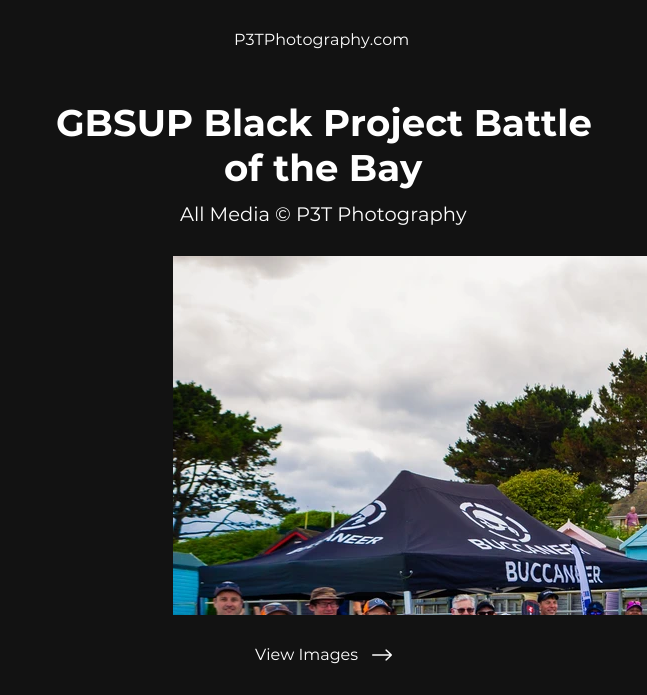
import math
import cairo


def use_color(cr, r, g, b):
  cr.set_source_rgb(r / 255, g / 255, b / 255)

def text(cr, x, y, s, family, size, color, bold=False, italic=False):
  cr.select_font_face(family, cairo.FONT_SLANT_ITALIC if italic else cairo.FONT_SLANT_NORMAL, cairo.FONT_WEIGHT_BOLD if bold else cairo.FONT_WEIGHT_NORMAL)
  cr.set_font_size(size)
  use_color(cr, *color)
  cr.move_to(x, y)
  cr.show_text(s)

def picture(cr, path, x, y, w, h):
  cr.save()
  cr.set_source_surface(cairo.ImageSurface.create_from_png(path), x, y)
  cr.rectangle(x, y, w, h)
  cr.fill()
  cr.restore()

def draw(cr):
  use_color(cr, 18, 18, 18)
  cr.paint()
  picture(cr, "img_01.png", 173, 256, 474, 359)
  picture(cr, "img_02.png", 372, 649, 20, 12)
  text(cr, 234, 45, "P3TPhotography.com", "Montserrat", 16, (255, 255, 255))
  text(cr, 56, 136, "GBSUP Black Project Battle", "Montserrat", 37.1, (255, 255, 255), bold=True)
  text(cr, 224, 181, "of the Bay", "Montserrat", 37.1, (255, 255, 255), bold=True)
  text(cr, 180, 221, "All Media © P3T Photography", "Montserrat", 19.5, (255, 255, 255))
  text(cr, 255, 660, "View Images", "Montserrat", 16, (255, 255, 255))


surface = cairo.ImageSurface(cairo.FORMAT_RGB24, 647, 695)
cr = cairo.Context(surface)
options = cairo.FontOptions()
options.set_hint_metrics(cairo.HINT_METRICS_OFF)
options.set_hint_style(cairo.HINT_STYLE_NONE)
cr.set_font_options(options)
cr.set_miter_limit(4)
draw(cr)
surface.write_to_png("out.png")
